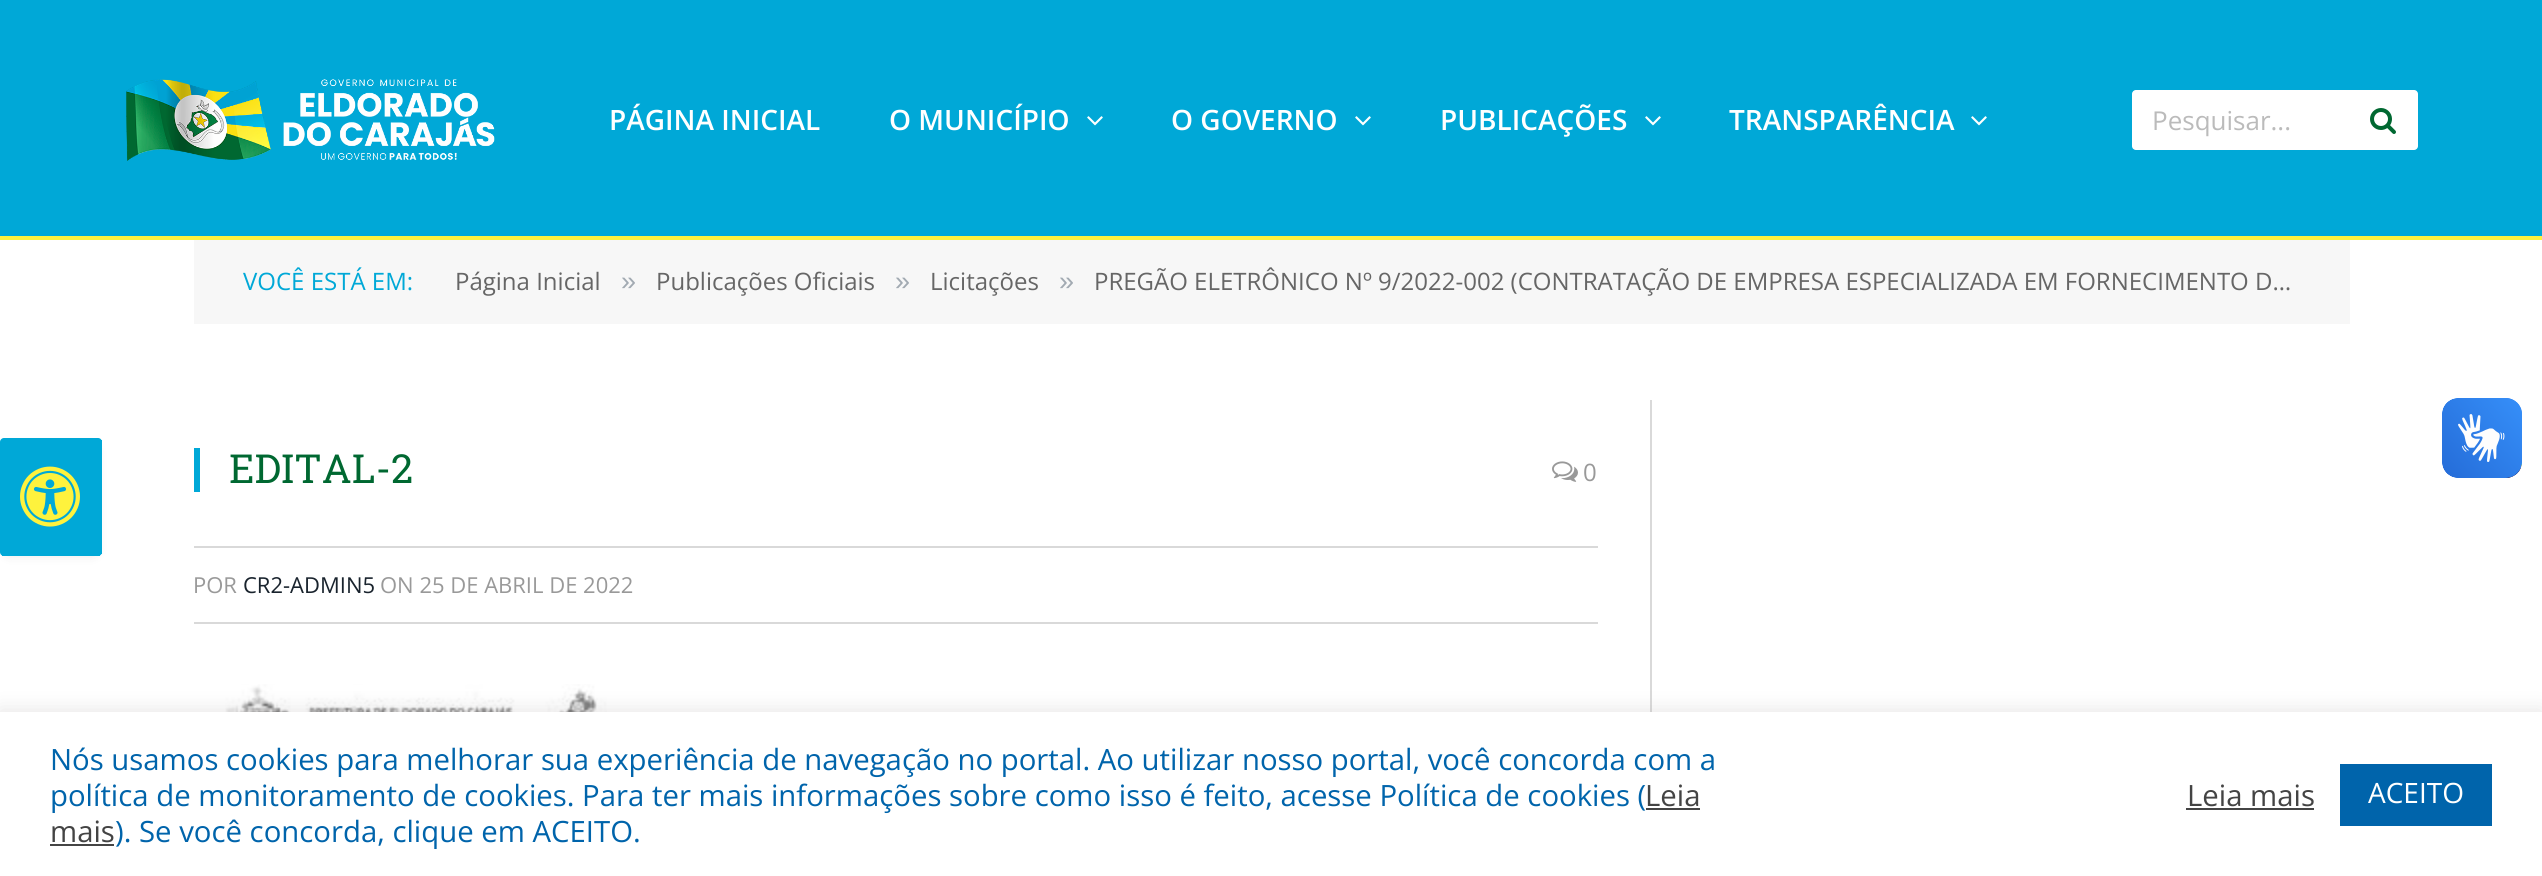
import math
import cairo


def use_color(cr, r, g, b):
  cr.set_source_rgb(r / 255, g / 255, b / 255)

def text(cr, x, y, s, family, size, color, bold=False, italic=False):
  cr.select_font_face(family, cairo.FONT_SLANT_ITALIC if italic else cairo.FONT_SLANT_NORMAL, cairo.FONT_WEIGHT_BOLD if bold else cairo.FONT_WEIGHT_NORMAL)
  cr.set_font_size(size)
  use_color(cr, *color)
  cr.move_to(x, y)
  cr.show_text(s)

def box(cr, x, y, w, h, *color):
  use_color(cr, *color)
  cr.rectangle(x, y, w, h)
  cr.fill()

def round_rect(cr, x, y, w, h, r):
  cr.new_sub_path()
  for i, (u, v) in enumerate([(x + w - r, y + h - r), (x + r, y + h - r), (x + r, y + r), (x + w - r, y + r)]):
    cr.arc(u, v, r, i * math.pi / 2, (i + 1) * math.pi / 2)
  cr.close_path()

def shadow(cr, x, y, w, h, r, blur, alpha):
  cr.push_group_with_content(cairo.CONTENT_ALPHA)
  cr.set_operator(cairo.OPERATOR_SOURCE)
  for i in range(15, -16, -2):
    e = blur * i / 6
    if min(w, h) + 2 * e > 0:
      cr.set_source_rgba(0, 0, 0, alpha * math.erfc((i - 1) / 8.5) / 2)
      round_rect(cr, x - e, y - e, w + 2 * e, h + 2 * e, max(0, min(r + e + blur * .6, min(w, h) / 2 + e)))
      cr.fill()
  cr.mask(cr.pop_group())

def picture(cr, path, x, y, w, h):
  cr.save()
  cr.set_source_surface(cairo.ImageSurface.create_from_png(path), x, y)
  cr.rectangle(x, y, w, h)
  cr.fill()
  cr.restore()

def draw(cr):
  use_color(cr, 255, 255, 255)
  cr.paint()
  box(cr, 0, 0, 2542, 236, 0, 168, 215)
  box(cr, 0, 236, 2542, 4, 254, 242, 61)
  picture(cr, "img_01.png", 126, 79, 369, 82)
  picture(cr, "img_02.png", 1087, 116, 16, 10)
  picture(cr, "img_02.png", 1355, 116, 16, 10)
  picture(cr, "img_02.png", 1645, 116, 16, 10)
  picture(cr, "img_02.png", 1971, 116, 16, 10)
  use_color(cr, 255, 255, 255)
  round_rect(cr, 2132, 90, 286, 60, 4)
  cr.fill()
  picture(cr, "img_03.png", 2370, 108, 26, 26)
  box(cr, 194, 240, 2156, 84, 247, 247, 247)
  use_color(cr, 0, 0, 0)
  shadow(cr, 8, 450, 86, 102, 0, 7, 0.16)
  use_color(cr, 0, 168, 215)
  round_rect(cr, 0, 438, 102, 118, 4)
  cr.fill()
  box(cr, 101, 440, 1, 114, 0, 168, 215)
  box(cr, 2, 555, 98, 1, 0, 168, 215)
  picture(cr, "img_04.png", 20, 466, 60, 61)
  box(cr, 194, 448, 6, 44, 0, 168, 215)
  picture(cr, "img_05.png", 1552, 461, 26, 21)
  box(cr, 194, 546, 1404, 2, 217, 217, 217)
  box(cr, 194, 622, 1404, 2, 217, 217, 217)
  picture(cr, "img_06.png", 206, 684, 401, 28)
  box(cr, 1650, 400, 2, 312, 217, 217, 217)
  picture(cr, "img_07.png", 2442, 398, 80, 80)
  picture(cr, "img_08.png", 2442, 398, 80, 80)
  use_color(cr, 172, 171, 171)
  shadow(cr, 0, 710, 2542, 164, 0, 10, 0.3)
  box(cr, 0, 712, 2542, 164, 255, 255, 255)
  box(cr, 1646, 808, 54, 2, 68, 68, 68)
  box(cr, 50, 844, 64, 2, 68, 68, 68)
  box(cr, 2186, 808, 128, 2, 68, 68, 68)
  box(cr, 2340, 764, 152, 62, 0, 100, 171)
  text(cr, 609, 130, "PÁGINA INICIAL", "Open Sans SemiBold", 28, (255, 255, 255))
  text(cr, 889, 130, "O MUNICÍPIO", "Open Sans SemiBold", 28, (255, 255, 255))
  text(cr, 1171, 130, "O GOVERNO", "Open Sans SemiBold", 28, (255, 255, 255))
  text(cr, 1440, 130, "PUBLICAÇÕES", "Open Sans SemiBold", 28, (255, 255, 255))
  text(cr, 1729, 130, "TRANSPARÊNCIA", "Open Sans SemiBold", 28, (255, 255, 255))
  text(cr, 2152, 130, "Pesquisar...", "Open Sans", 26, (187, 187, 187))
  text(cr, 243, 290, "VOCÊ ESTÁ EM:", "Open Sans", 24, (0, 168, 215))
  text(cr, 455, 290, "Página Inicial", "Open Sans", 24, (102, 102, 102))
  text(cr, 621, 290, "»", "Liberation Sans", 27, (162, 170, 178))
  text(cr, 656, 290, "Publicações Oficiais", "Open Sans", 24, (102, 102, 102))
  text(cr, 895, 290, "»", "Liberation Sans", 27, (162, 170, 178))
  text(cr, 930, 290, "Licitações", "Open Sans", 24, (102, 102, 102))
  text(cr, 1059, 290, "»", "Liberation Sans", 27, (162, 170, 178))
  text(cr, 1094, 290, "PREGÃO ELETRÔNICO Nº 9/2022-002 (CONTRATAÇÃO DE EMPRESA ESPECIALIZADA EM FORNECIMENTO D…", "Open Sans", 24, (102, 102, 102))
  text(cr, 229, 483, "EDITAL-2", "Roboto Slab", 40, (0, 104, 49))
  text(cr, 1583, 481, "0", "Open Sans", 24, (153, 153, 153))
  text(cr, 193, 593, "POR", "Open Sans", 22, (153, 153, 153))
  text(cr, 243, 593, "CR2-ADMIN5", "Open Sans", 22, (25, 35, 45))
  text(cr, 380, 593, "ON 25 DE ABRIL DE 2022", "Open Sans", 22, (153, 153, 153))
  text(cr, 50, 770, "Nós usamos cookies para melhorar sua experiência de navegação no portal. Ao utilizar nosso portal, você concorda com a", "Open Sans", 29.33, (0, 100, 171))
  text(cr, 50, 806, "política de monitoramento de cookies. Para ter mais informações sobre como isso é feito, acesse Política de cookies (", "Open Sans", 29.33, (0, 100, 171))
  text(cr, 1645, 806, "Leia", "Open Sans", 29.33, (68, 68, 68))
  text(cr, 50, 842, "mais", "Open Sans", 29.33, (68, 68, 68))
  text(cr, 115, 842, "). Se você concorda, clique em ACEITO.", "Open Sans", 29.33, (0, 100, 171))
  text(cr, 2187, 806, "Leia mais", "Open Sans", 29.33, (68, 68, 68))
  text(cr, 2368, 803, "ACEITO", "Open Sans", 28, (255, 255, 255))


surface = cairo.ImageSurface(cairo.FORMAT_RGB24, 2542, 876)
cr = cairo.Context(surface)
options = cairo.FontOptions()
options.set_hint_metrics(cairo.HINT_METRICS_OFF)
options.set_hint_style(cairo.HINT_STYLE_NONE)
cr.set_font_options(options)
cr.set_miter_limit(4)
draw(cr)
surface.write_to_png("out.png")
